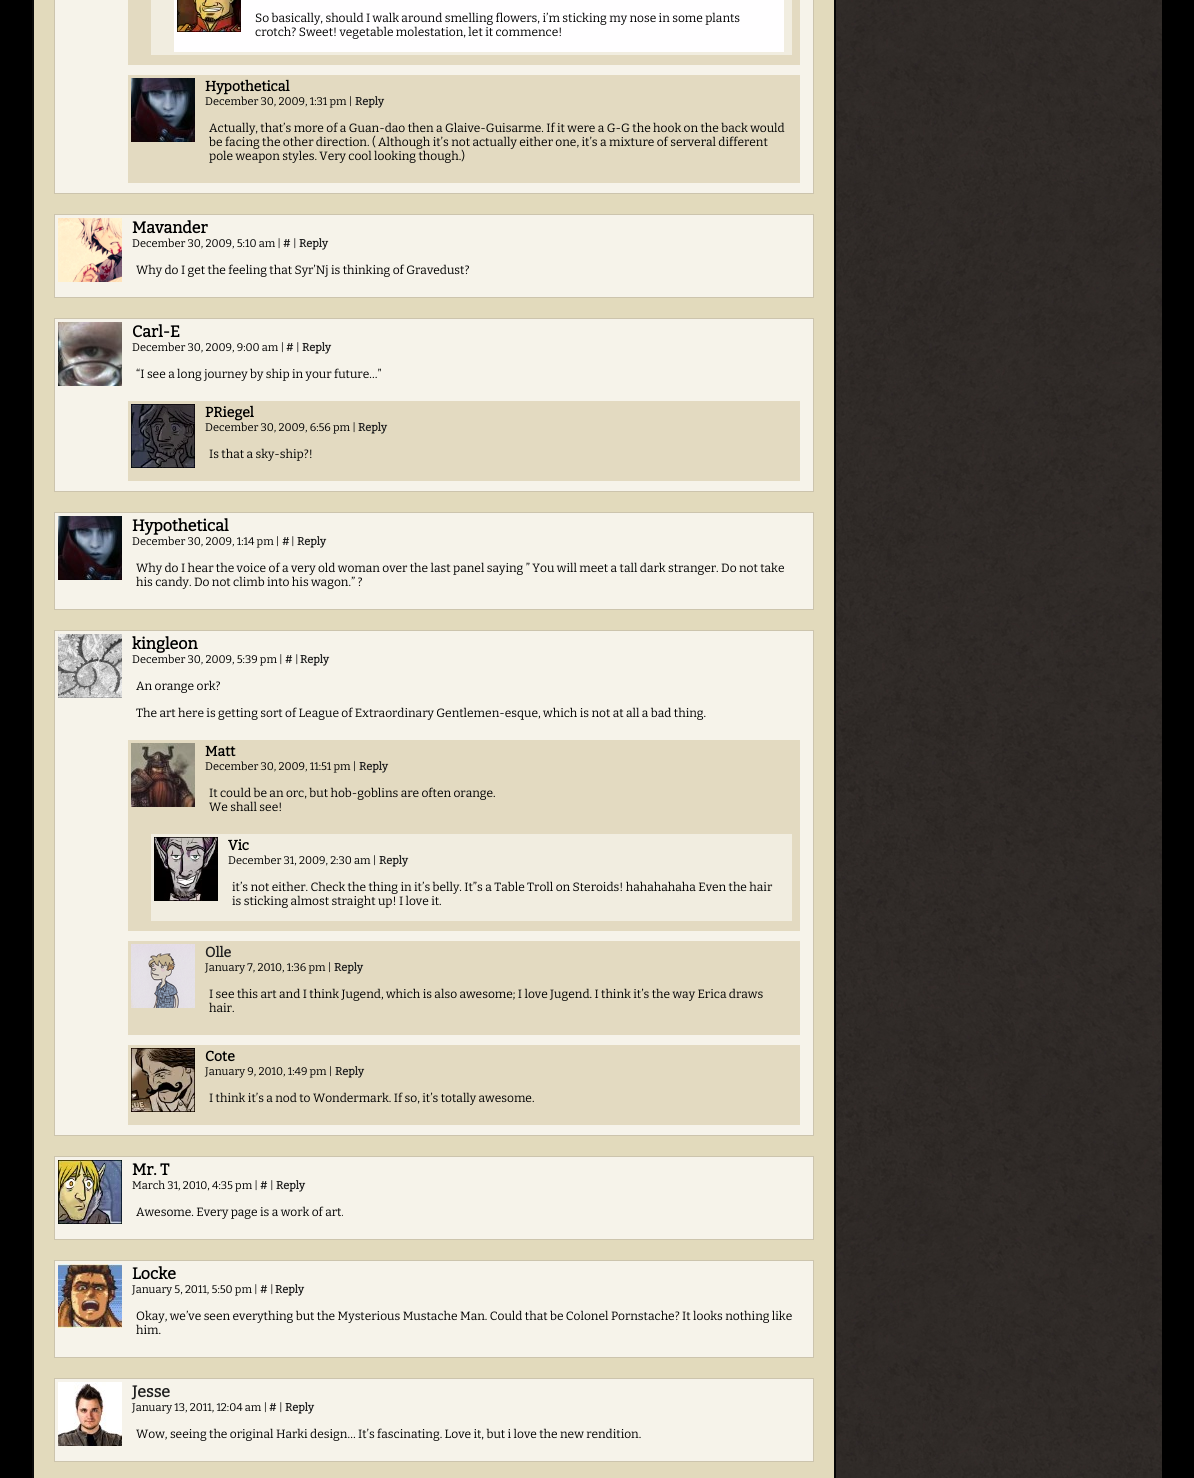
import math
import cairo


def use_color(cr, r, g, b):
  cr.set_source_rgb(r / 255, g / 255, b / 255)

def text(cr, x, y, s, family, size, color, bold=False, italic=False):
  cr.select_font_face(family, cairo.FONT_SLANT_ITALIC if italic else cairo.FONT_SLANT_NORMAL, cairo.FONT_WEIGHT_BOLD if bold else cairo.FONT_WEIGHT_NORMAL)
  cr.set_font_size(size)
  use_color(cr, *color)
  cr.move_to(x, y)
  cr.show_text(s)

def box(cr, x, y, w, h, *color):
  use_color(cr, *color)
  cr.rectangle(x, y, w, h)
  cr.fill()

def picture(cr, path, x, y, w, h):
  cr.save()
  cr.set_source_surface(cairo.ImageSurface.create_from_png(path), x, y)
  cr.rectangle(x, y, w, h)
  cr.fill()
  cr.restore()

def draw(cr):
  use_color(cr, 0, 0, 0)
  cr.paint()
  picture(cr, "img_01.png", 836, 0, 326, 1478)
  box(cr, 34, 0, 800, 1478, 226, 218, 188)
  use_color(cr, 7, 7, 7)
  cr.new_path()
  cr.move_to(836, -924)
  cr.line_to(836, 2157)
  cr.line_to(834, 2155)
  cr.line_to(834, -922)
  cr.close_path()
  cr.fill()
  use_color(cr, 11, 11, 11)
  cr.new_path()
  cr.move_to(32, 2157)
  cr.line_to(32, -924)
  cr.line_to(34, -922)
  cr.line_to(34, 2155)
  cr.close_path()
  cr.fill()
  use_color(cr, 246, 243, 234)
  cr.rectangle(54.5, -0.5, 759, 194)
  cr.fill_preserve()
  use_color(cr, 204, 196, 173)
  cr.set_line_width(1)
  cr.stroke()
  box(cr, 128, 0, 672, 65, 227, 218, 193)
  box(cr, 151, 0, 641, 55, 241, 237, 224)
  box(cr, 174, 0, 610, 52, 255, 254, 255)
  picture(cr, "img_02.png", 177, 0, 64, 32)
  box(cr, 128, 75, 672, 108, 227, 218, 193)
  picture(cr, "img_03.png", 131, 78, 64, 64)
  use_color(cr, 246, 243, 234)
  cr.rectangle(54.5, 214.5, 759, 83)
  cr.fill_preserve()
  use_color(cr, 204, 196, 173)
  cr.stroke()
  picture(cr, "img_04.png", 58, 218, 64, 64)
  use_color(cr, 246, 243, 234)
  cr.rectangle(54.5, 318.5, 759, 173)
  cr.fill_preserve()
  use_color(cr, 204, 196, 173)
  cr.stroke()
  picture(cr, "img_05.png", 58, 322, 64, 64)
  box(cr, 128, 401, 672, 80, 227, 218, 193)
  picture(cr, "img_06.png", 131, 404, 64, 64)
  use_color(cr, 246, 243, 234)
  cr.rectangle(54.5, 512.5, 759, 97)
  cr.fill_preserve()
  use_color(cr, 204, 196, 173)
  cr.stroke()
  picture(cr, "img_03.png", 58, 516, 64, 64)
  use_color(cr, 246, 243, 234)
  cr.rectangle(54.5, 630.5, 759, 505)
  cr.fill_preserve()
  use_color(cr, 204, 196, 173)
  cr.stroke()
  picture(cr, "img_07.png", 58, 634, 64, 64)
  box(cr, 128, 740, 672, 191, 227, 218, 193)
  picture(cr, "img_08.png", 131, 743, 64, 64)
  box(cr, 151, 834, 641, 87, 241, 237, 224)
  picture(cr, "img_09.png", 154, 837, 64, 64)
  box(cr, 128, 941, 672, 94, 227, 218, 193)
  picture(cr, "img_10.png", 131, 944, 64, 64)
  box(cr, 128, 1045, 672, 80, 227, 218, 193)
  picture(cr, "img_11.png", 131, 1048, 64, 64)
  use_color(cr, 246, 243, 234)
  cr.rectangle(54.5, 1156.5, 759, 83)
  cr.fill_preserve()
  use_color(cr, 204, 196, 173)
  cr.stroke()
  picture(cr, "img_12.png", 58, 1160, 64, 64)
  use_color(cr, 246, 243, 234)
  cr.rectangle(54.5, 1260.5, 759, 97)
  cr.fill_preserve()
  use_color(cr, 204, 196, 173)
  cr.stroke()
  picture(cr, "img_13.png", 58, 1264, 64, 64)
  use_color(cr, 246, 243, 234)
  cr.rectangle(54.5, 1378.5, 759, 83)
  cr.fill_preserve()
  use_color(cr, 204, 196, 173)
  cr.stroke()
  picture(cr, "img_14.png", 58, 1382, 64, 64)
  text(cr, 255, 22, "So basically, should I walk around smelling flowers, i’m sticking my nose in some plants", "Bitter Thin", 12, (0, 0, 0))
  text(cr, 255, 36, "crotch? Sweet! vegetable molestation, let it commence!", "Bitter Thin", 12, (0, 0, 0))
  text(cr, 205, 91, "Hypothetical", "Bitter", 14, (0, 0, 0), bold=True)
  text(cr, 205, 105, "December 30, 2009, 1:31 pm |", "Bitter Thin", 11, (0, 0, 0))
  text(cr, 355, 105, "Reply", "Bitter", 11, (33, 33, 33), bold=True)
  text(cr, 209, 132, "Actually, that’s more of a Guan-dao then a Glaive-Guisarme. If it were a G-G the hook on the back would", "Bitter Thin", 12, (0, 0, 0))
  text(cr, 209, 146, "be facing the other direction. ( Although it’s not actually either one, it’s a mixture of serveral different", "Bitter Thin", 12, (0, 0, 0))
  text(cr, 209, 160, "pole weapon styles. Very cool looking though.)", "Bitter Thin", 12, (0, 0, 0))
  text(cr, 132, 233, "Mavander", "Bitter", 16, (0, 0, 0), bold=True)
  text(cr, 132, 247, "December 30, 2009, 5:10 am |", "Bitter Thin", 11, (0, 0, 0))
  text(cr, 283, 247, "#", "Bitter", 11, (33, 33, 33), bold=True)
  text(cr, 293, 247, "|", "Bitter Thin", 11, (0, 0, 0))
  text(cr, 299, 247, "Reply", "Bitter", 11, (33, 33, 33), bold=True)
  text(cr, 136, 274, "Why do I get the feeling that Syr’Nj is thinking of Gravedust?", "Bitter Thin", 12, (0, 0, 0))
  text(cr, 132, 337, "Carl-E", "Bitter", 16, (0, 0, 0), bold=True)
  text(cr, 132, 351, "December 30, 2009, 9:00 am |", "Bitter Thin", 11, (0, 0, 0))
  text(cr, 286, 351, "#", "Bitter", 11, (33, 33, 33), bold=True)
  text(cr, 296, 351, "|", "Bitter Thin", 11, (0, 0, 0))
  text(cr, 302, 351, "Reply", "Bitter", 11, (33, 33, 33), bold=True)
  text(cr, 136, 378, "“I see a long journey by ship in your future…”", "Bitter Thin", 12, (0, 0, 0))
  text(cr, 205, 417, "PRiegel", "Bitter", 14, (0, 0, 0), bold=True)
  text(cr, 205, 431, "December 30, 2009, 6:56 pm |", "Bitter Thin", 11, (0, 0, 0))
  text(cr, 358, 431, "Reply", "Bitter", 11, (33, 33, 33), bold=True)
  text(cr, 209, 458, "Is that a sky-ship?!", "Bitter Thin", 12, (0, 0, 0))
  text(cr, 132, 531, "Hypothetical", "Bitter", 16, (0, 0, 0), bold=True)
  text(cr, 132, 545, "December 30, 2009, 1:14 pm |", "Bitter Thin", 11, (0, 0, 0))
  text(cr, 282, 545, "#", "Bitter", 11, (33, 33, 33), bold=True)
  text(cr, 291, 545, "|", "Bitter Thin", 11, (0, 0, 0))
  text(cr, 297, 545, "Reply", "Bitter", 11, (33, 33, 33), bold=True)
  text(cr, 136, 572, "Why do I hear the voice of a very old woman over the last panel saying ” You will meet a tall dark stranger. Do not take", "Bitter Thin", 12, (0, 0, 0))
  text(cr, 136, 586, "his candy. Do not climb into his wagon.” ?", "Bitter Thin", 12, (0, 0, 0))
  text(cr, 132, 649, "kingleon", "Bitter", 16, (0, 0, 0), bold=True)
  text(cr, 132, 663, "December 30, 2009, 5:39 pm |", "Bitter Thin", 11, (0, 0, 0))
  text(cr, 285, 663, "#", "Bitter", 11, (33, 33, 33), bold=True)
  text(cr, 295, 663, "|", "Bitter Thin", 11, (0, 0, 0))
  text(cr, 300, 663, "Reply", "Bitter", 11, (33, 33, 33), bold=True)
  text(cr, 136, 690, "An orange ork?", "Bitter Thin", 12, (0, 0, 0))
  text(cr, 136, 717, "The art here is getting sort of League of Extraordinary Gentlemen-esque, which is not at all a bad thing.", "Bitter Thin", 12, (0, 0, 0))
  text(cr, 205, 756, "Matt", "Bitter", 14, (0, 0, 0), bold=True)
  text(cr, 205, 770, "December 30, 2009, 11:51 pm |", "Bitter Thin", 11, (0, 0, 0))
  text(cr, 359, 770, "Reply", "Bitter", 11, (33, 33, 33), bold=True)
  text(cr, 209, 797, "It could be an orc, but hob-goblins are often orange.", "Bitter Thin", 12, (0, 0, 0))
  text(cr, 209, 811, "We shall see!", "Bitter Thin", 12, (0, 0, 0))
  text(cr, 228, 850, "Vic", "Bitter", 14, (0, 0, 0), bold=True)
  text(cr, 228, 864, "December 31, 2009, 2:30 am |", "Bitter Thin", 11, (0, 0, 0))
  text(cr, 379, 864, "Reply", "Bitter", 11, (33, 33, 33), bold=True)
  text(cr, 232, 891, "it’s not either. Check the thing in it’s belly. It”s a Table Troll on Steroids! hahahahaha Even the hair", "Bitter Thin", 12, (0, 0, 0))
  text(cr, 232, 905, "is sticking almost straight up! I love it.", "Bitter Thin", 12, (0, 0, 0))
  text(cr, 205, 957, "Olle", "Bitter", 14, (33, 33, 33), bold=True)
  text(cr, 205, 971, "January 7, 2010, 1:36 pm |", "Bitter Thin", 11, (0, 0, 0))
  text(cr, 334, 971, "Reply", "Bitter", 11, (33, 33, 33), bold=True)
  text(cr, 209, 998, "I see this art and I think Jugend, which is also awesome; I love Jugend. I think it’s the way Erica draws", "Bitter Thin", 12, (0, 0, 0))
  text(cr, 209, 1012, "hair.", "Bitter Thin", 12, (0, 0, 0))
  text(cr, 205, 1061, "Cote", "Bitter", 14, (0, 0, 0), bold=True)
  text(cr, 205, 1075, "January 9, 2010, 1:49 pm |", "Bitter Thin", 11, (0, 0, 0))
  text(cr, 335, 1075, "Reply", "Bitter", 11, (33, 33, 33), bold=True)
  text(cr, 209, 1102, "I think it’s a nod to Wondermark. If so, it’s totally awesome.", "Bitter Thin", 12, (0, 0, 0))
  text(cr, 132, 1175, "Mr. T", "Bitter", 16, (0, 0, 0), bold=True)
  text(cr, 132, 1189, "March 31, 2010, 4:35 pm |", "Bitter Thin", 11, (0, 0, 0))
  text(cr, 260, 1189, "#", "Bitter", 11, (33, 33, 33), bold=True)
  text(cr, 270, 1189, "|", "Bitter Thin", 11, (0, 0, 0))
  text(cr, 276, 1189, "Reply", "Bitter", 11, (33, 33, 33), bold=True)
  text(cr, 136, 1216, "Awesome. Every page is a work of art.", "Bitter Thin", 12, (0, 0, 0))
  text(cr, 132, 1279, "Locke", "Bitter", 16, (0, 0, 0), bold=True)
  text(cr, 132, 1293, "January 5, 2011, 5:50 pm |", "Bitter Thin", 11, (0, 0, 0))
  text(cr, 260, 1293, "#", "Bitter", 11, (33, 33, 33), bold=True)
  text(cr, 270, 1293, "|", "Bitter Thin", 11, (0, 0, 0))
  text(cr, 275, 1293, "Reply", "Bitter", 11, (33, 33, 33), bold=True)
  text(cr, 136, 1320, "Okay, we’ve seen everything but the Mysterious Mustache Man. Could that be Colonel Pornstache? It looks nothing like", "Bitter Thin", 12, (0, 0, 0))
  text(cr, 136, 1334, "him.", "Bitter Thin", 12, (0, 0, 0))
  text(cr, 132, 1397, "Jesse", "Bitter", 16, (33, 33, 33), bold=True)
  text(cr, 132, 1411, "January 13, 2011, 12:04 am |", "Bitter Thin", 11, (0, 0, 0))
  text(cr, 269, 1411, "#", "Bitter", 11, (33, 33, 33), bold=True)
  text(cr, 279, 1411, "|", "Bitter Thin", 11, (0, 0, 0))
  text(cr, 285, 1411, "Reply", "Bitter", 11, (33, 33, 33), bold=True)
  text(cr, 136, 1438, "Wow, seeing the original Harki design… It’s fascinating. Love it, but i love the new rendition.", "Bitter Thin", 12, (0, 0, 0))


surface = cairo.ImageSurface(cairo.FORMAT_RGB24, 1194, 1478)
cr = cairo.Context(surface)
options = cairo.FontOptions()
options.set_hint_metrics(cairo.HINT_METRICS_OFF)
options.set_hint_style(cairo.HINT_STYLE_NONE)
cr.set_font_options(options)
cr.set_miter_limit(4)
draw(cr)
surface.write_to_png("out.png")
